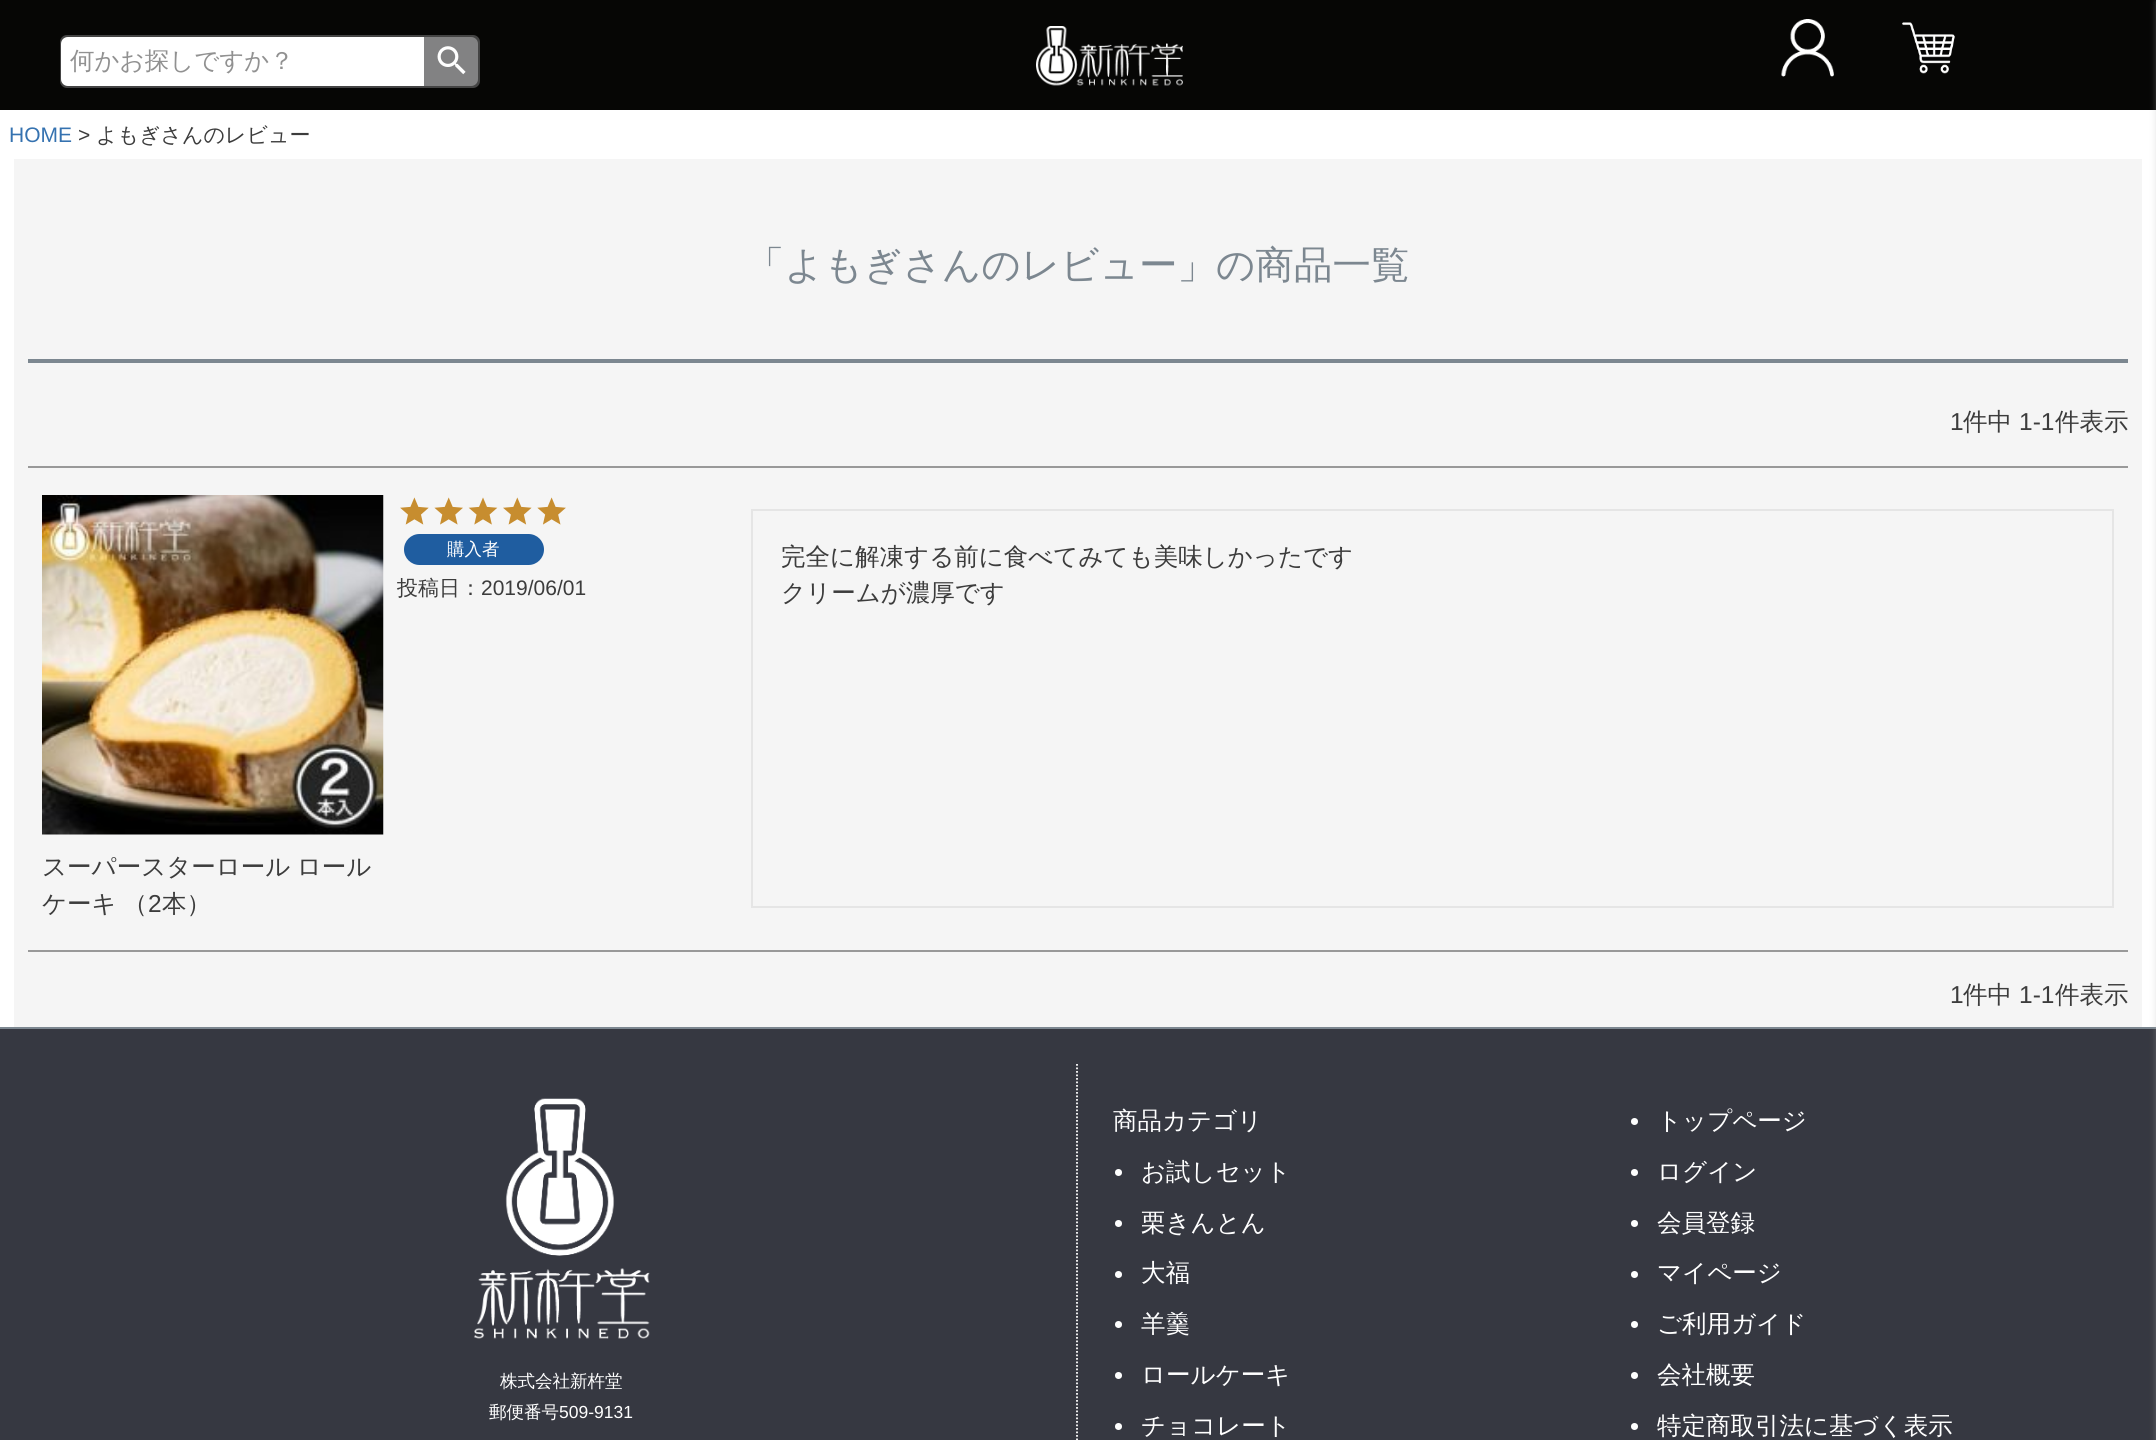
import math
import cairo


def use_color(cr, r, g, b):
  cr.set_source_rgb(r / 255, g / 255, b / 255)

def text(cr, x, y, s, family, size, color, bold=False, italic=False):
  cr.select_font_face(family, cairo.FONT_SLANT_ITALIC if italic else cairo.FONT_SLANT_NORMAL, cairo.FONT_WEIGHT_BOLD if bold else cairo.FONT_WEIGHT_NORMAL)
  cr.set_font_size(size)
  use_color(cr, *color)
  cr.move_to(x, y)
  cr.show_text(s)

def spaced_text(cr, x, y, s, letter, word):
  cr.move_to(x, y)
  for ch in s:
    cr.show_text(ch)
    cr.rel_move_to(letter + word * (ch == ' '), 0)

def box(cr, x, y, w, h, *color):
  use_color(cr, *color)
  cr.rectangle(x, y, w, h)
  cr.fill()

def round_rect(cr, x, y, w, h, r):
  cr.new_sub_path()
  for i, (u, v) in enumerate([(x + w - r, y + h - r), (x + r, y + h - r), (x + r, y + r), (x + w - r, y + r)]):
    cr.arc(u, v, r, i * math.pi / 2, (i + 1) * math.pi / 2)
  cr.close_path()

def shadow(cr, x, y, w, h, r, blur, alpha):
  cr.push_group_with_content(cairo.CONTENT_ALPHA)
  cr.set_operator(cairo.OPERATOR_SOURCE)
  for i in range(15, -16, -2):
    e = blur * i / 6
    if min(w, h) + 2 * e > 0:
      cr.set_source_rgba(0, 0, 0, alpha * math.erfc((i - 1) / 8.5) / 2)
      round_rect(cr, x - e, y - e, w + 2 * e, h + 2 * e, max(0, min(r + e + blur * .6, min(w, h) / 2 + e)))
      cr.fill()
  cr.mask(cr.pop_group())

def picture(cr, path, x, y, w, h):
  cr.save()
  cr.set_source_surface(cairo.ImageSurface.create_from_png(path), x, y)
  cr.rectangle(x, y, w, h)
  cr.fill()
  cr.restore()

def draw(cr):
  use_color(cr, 255, 255, 255)
  cr.paint()
  box(cr, 0, 0, 2156, 110, 6, 6, 5)
  use_color(cr, 68, 68, 68)
  round_rect(cr, 61, 36, 418, 51, 6)
  cr.fill_preserve()
  cr.stroke()
  use_color(cr, 255, 255, 255)
  cr.new_path()
  cr.move_to(68, 37)
  cr.line_to(424, 37)
  cr.line_to(424, 86)
  cr.line_to(68, 86)
  cr.curve_to(64, 86, 61, 83, 61, 79)
  cr.line_to(61, 44)
  cr.curve_to(61, 40, 64, 37, 68, 37)
  cr.close_path()
  cr.fill()
  use_color(cr, 130, 130, 131)
  cr.new_path()
  cr.move_to(424, 37)
  cr.line_to(471, 37)
  cr.curve_to(475, 37, 478, 40, 478, 44)
  cr.line_to(478, 79)
  cr.curve_to(478, 83, 475, 86, 471, 86)
  cr.line_to(424, 86)
  cr.close_path()
  cr.fill()
  picture(cr, "img_01.png", 437, 46, 29, 29)
  picture(cr, "img_02.png", 1036, 26, 147, 60)
  picture(cr, "img_03.png", 1781, 19, 53, 58)
  picture(cr, "img_04.png", 1902, 22, 53, 52)
  box(cr, 14, 159, 2128, 868, 245, 245, 245)
  box(cr, 28, 359, 2100, 4, 124, 135, 144)
  box(cr, 28, 466, 2100, 2, 153, 153, 153)
  box(cr, 28, 950, 2100, 2, 153, 153, 153)
  picture(cr, "img_05.png", 400, 497, 166, 28)
  use_color(cr, 31, 93, 160)
  round_rect(cr, 404, 534, 140, 31, 15.5)
  cr.fill()
  cr.rectangle(752, 510, 1361, 397)
  use_color(cr, 229, 229, 229)
  cr.stroke()
  picture(cr, "img_06.png", 42, 495, 342, 340)
  box(cr, 0, 1029, 2156, 411, 54, 56, 65)
  box(cr, 0, 1027, 2156, 2, 124, 135, 144)
  use_color(cr, 178, 178, 178)
  shadow(cr, 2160, 2, 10, 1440, 0, 4.5, 1)
  cr.new_path()
  cr.move_to(1077, 1064)
  cr.line_to(1077, 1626)
  use_color(cr, 255, 255, 255)
  cr.set_line_width(1.8)
  cr.set_dash([1.75, 1.75])
  cr.stroke()
  picture(cr, "img_07.png", 474, 1098, 176, 241)
  cr.arc(1118.5, 1172.5, 3.5, 0, 2 * math.pi)
  cr.fill()
  cr.arc(1118.5, 1223.5, 3.5, 0, 2 * math.pi)
  cr.fill()
  cr.arc(1118.5, 1274.5, 3.5, 0, 2 * math.pi)
  cr.fill()
  cr.arc(1118.5, 1324.5, 3.5, 0, 2 * math.pi)
  cr.fill()
  cr.arc(1118.5, 1375.5, 3.5, 0, 2 * math.pi)
  cr.fill()
  cr.arc(1118.5, 1426.5, 3.5, 0, 2 * math.pi)
  cr.fill()
  cr.arc(1634.5, 1121.5, 3.5, 0, 2 * math.pi)
  cr.fill()
  cr.arc(1634.5, 1172.5, 3.5, 0, 2 * math.pi)
  cr.fill()
  cr.arc(1634.5, 1223.5, 3.5, 0, 2 * math.pi)
  cr.fill()
  cr.arc(1634.5, 1274.5, 3.5, 0, 2 * math.pi)
  cr.fill()
  cr.arc(1634.5, 1324.5, 3.5, 0, 2 * math.pi)
  cr.fill()
  cr.arc(1634.5, 1375.5, 3.5, 0, 2 * math.pi)
  cr.fill()
  cr.arc(1634.5, 1426.5, 3.5, 0, 2 * math.pi)
  cr.fill()
  text(cr, 70, 69, "何かお探しですか？", "WenQuanYi Zen Hei Medium", 24.5, (145, 145, 145))
  text(cr, 9, 142, "HOME", "Liberation Sans", 21, (53, 114, 176))
  text(cr, 78, 142, ">", "Liberation Sans", 21, (60, 60, 60))
  text(cr, 96, 142, "よもぎさんのレビュー", "WenQuanYi Zen Hei Medium", 21, (60, 60, 60))
  text(cr, 746, 278, "「よもぎさんのレビュー」の商品一覧", "WenQuanYi Zen Hei Medium", 38.5, (124, 135, 144))
  text(cr, 1950, 430, "1", "Liberation Sans", 24.5, (60, 60, 60))
  text(cr, 1963, 430, "件中", "WenQuanYi Zen Hei Medium", 24.5, (60, 60, 60))
  text(cr, 2019, 430, "1-1", "Liberation Sans", 24.5, (60, 60, 60))
  text(cr, 2055, 430, "件表示", "WenQuanYi Zen Hei Medium", 24.5, (60, 60, 60))
  text(cr, 447, 555, "購入者", "WenQuanYi Zen Hei Medium", 17.5, (255, 255, 255))
  text(cr, 397, 595, "投稿日：", "WenQuanYi Zen Hei Medium", 21, (60, 60, 60))
  text(cr, 481, 595, "2019/06/01", "Liberation Sans", 21, (60, 60, 60))
  text(cr, 781, 565, "完全に解凍する前に食べてみても美味しかったです", "WenQuanYi Zen Hei Medium", 24.5, (60, 60, 60))
  text(cr, 781, 601, "クリームが濃厚です", "WenQuanYi Zen Hei Medium", 24.5, (60, 60, 60))
  spaced_text(cr, 42, 875, "スーパースターロール ロール", 0, -1)
  spaced_text(cr, 42, 912, "ケーキ （", 0, -1)
  text(cr, 148, 912, "2", "Liberation Sans", 24.5, (60, 60, 60))
  text(cr, 162, 912, "本）", "WenQuanYi Zen Hei Medium", 24.5, (60, 60, 60))
  text(cr, 1950, 1003, "1", "Liberation Sans", 24.5, (60, 60, 60))
  text(cr, 1963, 1003, "件中", "WenQuanYi Zen Hei Medium", 24.5, (60, 60, 60))
  text(cr, 2019, 1003, "1-1", "Liberation Sans", 24.5, (60, 60, 60))
  text(cr, 2055, 1003, "件表示", "WenQuanYi Zen Hei Medium", 24.5, (60, 60, 60))
  text(cr, 500, 1387, "株式会社新杵堂", "WenQuanYi Zen Hei Medium", 17.5, (255, 255, 255))
  text(cr, 489, 1418, "郵便番号", "WenQuanYi Zen Hei Medium", 17.5, (255, 255, 255))
  text(cr, 559, 1418, "509-9131", "Liberation Sans", 17.5, (255, 255, 255))
  text(cr, 1113, 1129, "商品カテゴリ", "WenQuanYi Zen Hei Medium", 24.5, (255, 255, 255))
  text(cr, 1141, 1180, "お試しセット", "WenQuanYi Zen Hei Medium", 24.5, (255, 255, 255))
  text(cr, 1141, 1231, "栗きんとん", "WenQuanYi Zen Hei Medium", 24.5, (255, 255, 255))
  text(cr, 1141, 1281, "大福", "WenQuanYi Zen Hei Medium", 24.5, (255, 255, 255))
  text(cr, 1141, 1332, "羊羹", "WenQuanYi Zen Hei Medium", 24.5, (255, 255, 255))
  text(cr, 1141, 1383, "ロールケーキ", "WenQuanYi Zen Hei Medium", 24.5, (255, 255, 255))
  text(cr, 1141, 1434, "チョコレート", "WenQuanYi Zen Hei Medium", 24.5, (255, 255, 255))
  text(cr, 1657, 1129, "トップページ", "WenQuanYi Zen Hei Medium", 24.5, (255, 255, 255))
  text(cr, 1657, 1180, "ログイン", "WenQuanYi Zen Hei Medium", 24.5, (255, 255, 255))
  text(cr, 1657, 1231, "会員登録", "WenQuanYi Zen Hei Medium", 24.5, (255, 255, 255))
  text(cr, 1657, 1281, "マイページ", "WenQuanYi Zen Hei Medium", 24.5, (255, 255, 255))
  text(cr, 1657, 1332, "ご利用ガイド", "WenQuanYi Zen Hei Medium", 24.5, (255, 255, 255))
  text(cr, 1657, 1383, "会社概要", "WenQuanYi Zen Hei Medium", 24.5, (255, 255, 255))
  text(cr, 1657, 1434, "特定商取引法に基づく表示", "WenQuanYi Zen Hei Medium", 24.5, (255, 255, 255))


surface = cairo.ImageSurface(cairo.FORMAT_RGB24, 2156, 1440)
cr = cairo.Context(surface)
options = cairo.FontOptions()
options.set_hint_metrics(cairo.HINT_METRICS_OFF)
options.set_hint_style(cairo.HINT_STYLE_NONE)
cr.set_font_options(options)
cr.set_miter_limit(4)
draw(cr)
surface.write_to_png("out.png")
